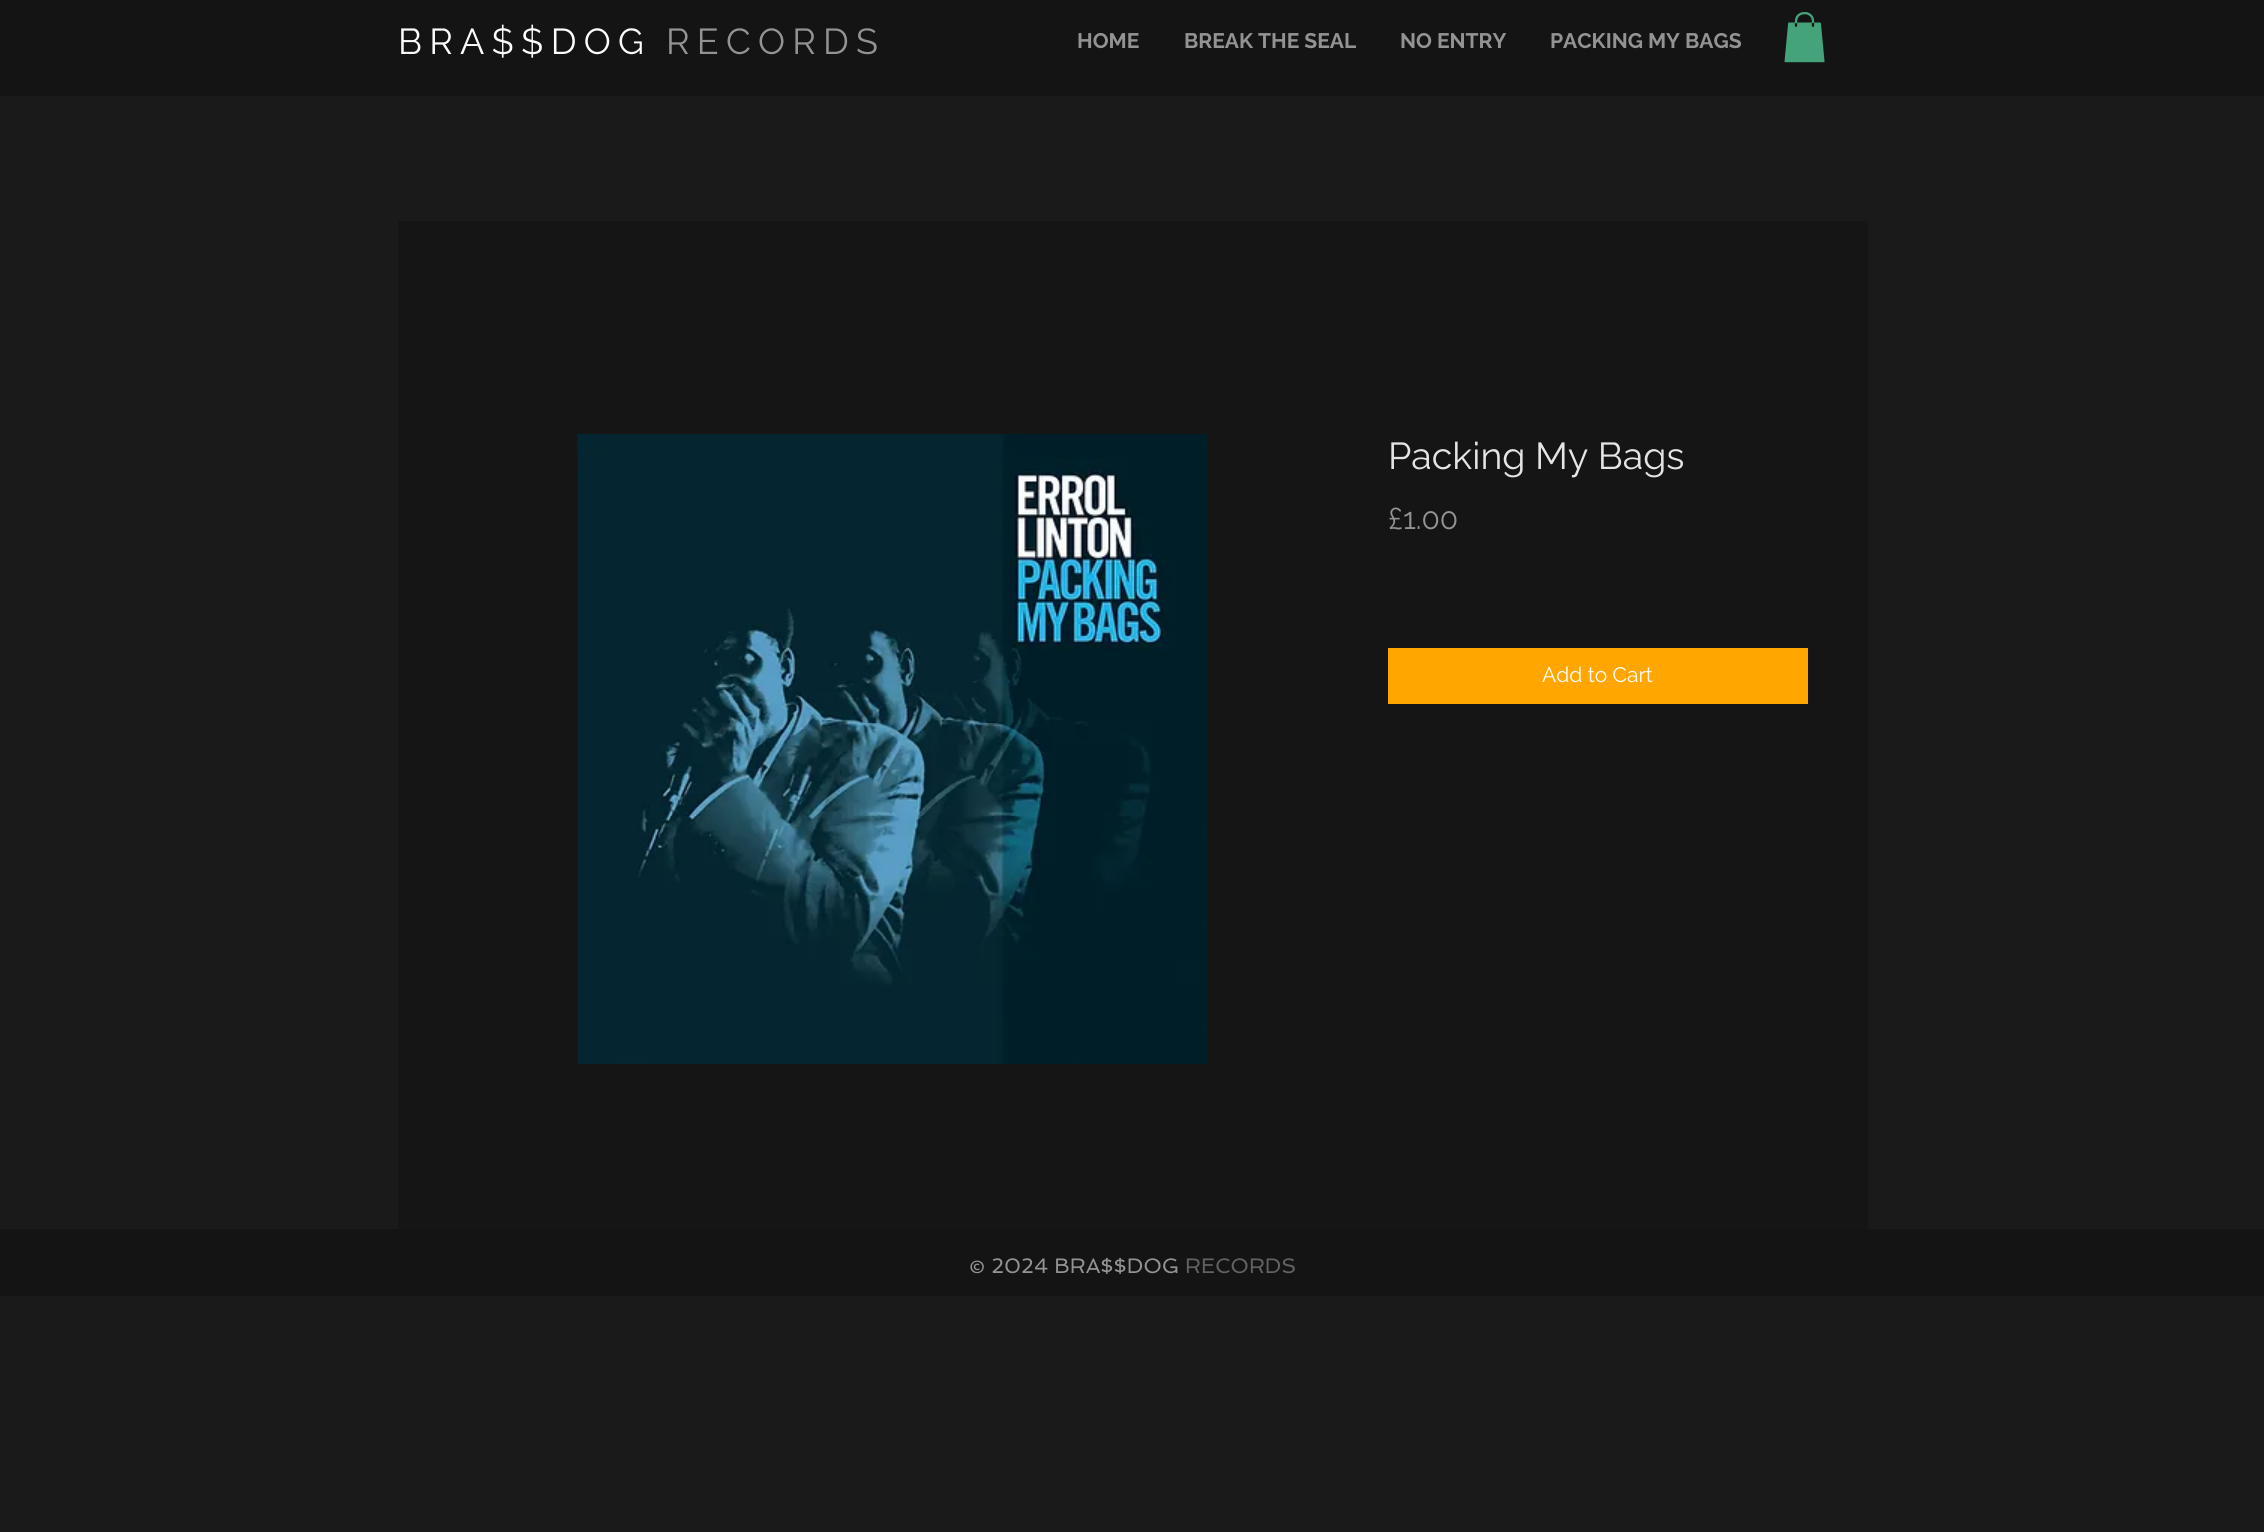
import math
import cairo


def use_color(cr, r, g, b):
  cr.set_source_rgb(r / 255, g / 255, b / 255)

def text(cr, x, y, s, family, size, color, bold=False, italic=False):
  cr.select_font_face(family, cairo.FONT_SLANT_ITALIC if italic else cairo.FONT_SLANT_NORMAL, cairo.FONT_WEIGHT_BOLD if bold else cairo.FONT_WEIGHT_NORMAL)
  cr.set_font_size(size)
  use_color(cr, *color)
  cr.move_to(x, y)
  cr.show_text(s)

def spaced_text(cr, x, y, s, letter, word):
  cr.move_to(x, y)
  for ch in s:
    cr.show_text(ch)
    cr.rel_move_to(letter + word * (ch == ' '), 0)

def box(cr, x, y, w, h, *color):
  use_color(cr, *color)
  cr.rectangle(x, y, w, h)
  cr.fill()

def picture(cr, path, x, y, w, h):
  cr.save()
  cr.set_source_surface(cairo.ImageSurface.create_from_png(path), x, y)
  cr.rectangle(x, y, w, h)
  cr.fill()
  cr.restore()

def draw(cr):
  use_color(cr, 26, 26, 26)
  cr.paint()
  box(cr, 0, 0, 2264, 96, 20, 20, 20)
  picture(cr, "img_01.png", 1784, 12, 41, 51)
  box(cr, 398, 221, 1470, 1008, 21, 21, 21)
  picture(cr, "img_02.png", 577, 434, 631, 630)
  box(cr, 1388, 648, 420, 56, 255, 166, 0)
  box(cr, 0, 1229, 2264, 67, 20, 20, 20)
  cr.select_font_face("Raleway")
  cr.set_font_size(36)
  use_color(cr, 253, 253, 253)
  spaced_text(cr, 398, 54, "BRA$$DOG", 7.25, 0)
  use_color(cr, 147, 147, 147)
  spaced_text(cr, 666, 54, "RECORDS", 7.25, 0)
  text(cr, 1077, 48, "HOME", "Raleway", 21, (147, 147, 147), bold=True)
  text(cr, 1184, 48, "BREAK THE SEAL", "Raleway", 21, (147, 147, 147), bold=True)
  text(cr, 1400, 48, "NO ENTRY", "Raleway", 21, (147, 147, 147), bold=True)
  text(cr, 1550, 48, "PACKING MY BAGS", "Raleway", 21, (147, 147, 147), bold=True)
  text(cr, 1388, 469, "Packing My Bags", "Raleway", 37.5, (228, 228, 228))
  text(cr, 1388, 529, "£1.00", "Raleway", 30, (147, 147, 147))
  text(cr, 1542, 682, "Add to Cart", "Raleway", 21, (253, 253, 253))
  text(cr, 969, 1273, "© 2024 BRA$$DOG", "Spinnaker", 21, (147, 147, 147))
  text(cr, 1185, 1273, "RECORDS", "Spinnaker", 21, (98, 98, 98))


surface = cairo.ImageSurface(cairo.FORMAT_RGB24, 2264, 1532)
cr = cairo.Context(surface)
options = cairo.FontOptions()
options.set_hint_metrics(cairo.HINT_METRICS_OFF)
options.set_hint_style(cairo.HINT_STYLE_NONE)
cr.set_font_options(options)
cr.set_miter_limit(4)
draw(cr)
surface.write_to_png("out.png")
